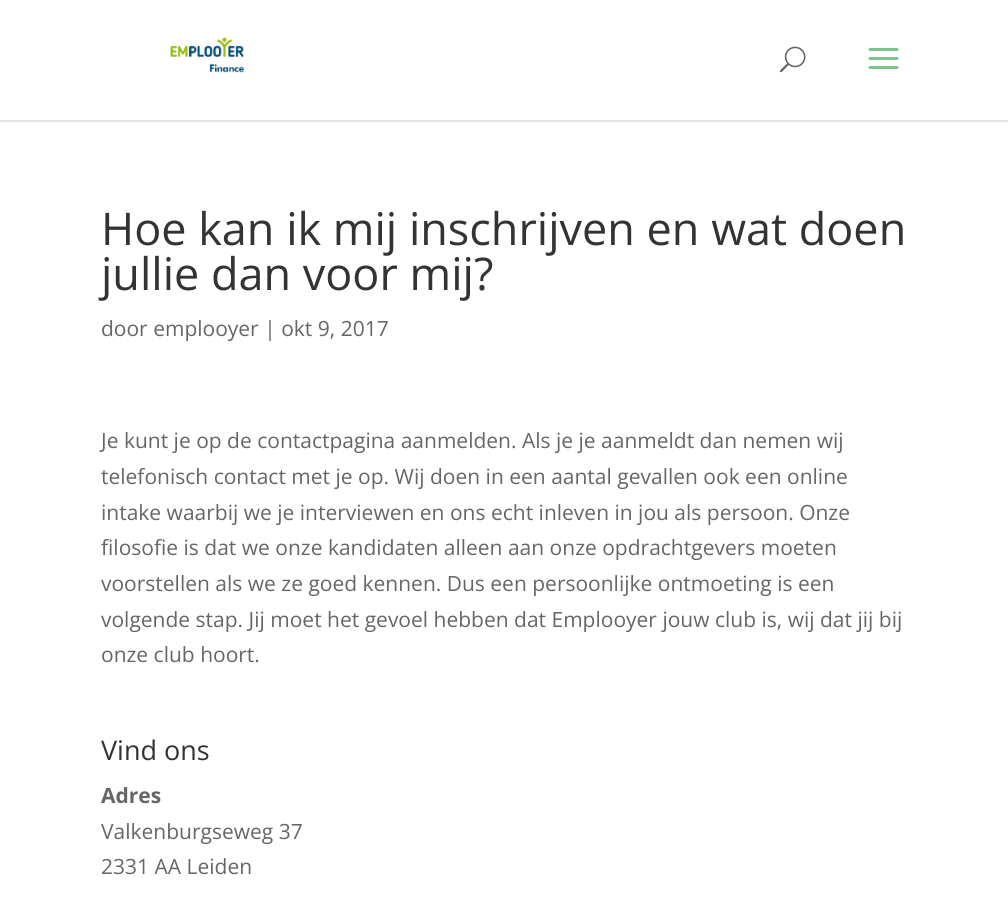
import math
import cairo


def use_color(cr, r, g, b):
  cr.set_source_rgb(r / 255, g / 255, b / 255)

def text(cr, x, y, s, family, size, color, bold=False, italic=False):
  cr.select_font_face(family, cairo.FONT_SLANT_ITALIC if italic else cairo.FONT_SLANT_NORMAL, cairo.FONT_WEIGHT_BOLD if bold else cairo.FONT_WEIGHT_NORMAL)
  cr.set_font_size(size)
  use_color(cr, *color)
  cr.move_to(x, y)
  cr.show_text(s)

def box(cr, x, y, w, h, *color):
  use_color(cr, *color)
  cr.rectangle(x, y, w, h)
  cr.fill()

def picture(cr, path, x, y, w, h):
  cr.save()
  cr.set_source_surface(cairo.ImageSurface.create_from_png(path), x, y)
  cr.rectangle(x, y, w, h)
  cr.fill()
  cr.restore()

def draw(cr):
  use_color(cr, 255, 255, 255)
  cr.paint()
  box(cr, 0, 120, 1008, 2, 230, 230, 230)
  picture(cr, "img_01.png", 169, 37, 76, 36)
  picture(cr, "img_02.png", 779, 46, 27, 27)
  picture(cr, "img_03.png", 868, 48, 31, 21)
  text(cr, 101, 245, "Hoe kan ik mij inschrijven en wat doen", "Open Sans", 45, (51, 51, 51))
  text(cr, 101, 290, "jullie dan voor mij?", "Open Sans", 45, (51, 51, 51))
  text(cr, 101, 336, "door emplooyer | okt 9, 2017", "Open Sans", 21, (102, 102, 102))
  text(cr, 101, 448, "Je kunt je op de contactpagina aanmelden. Als je je aanmeldt dan nemen wij", "Open Sans", 21, (102, 102, 102))
  text(cr, 101, 484, "telefonisch contact met je op. Wij doen in een aantal gevallen ook een online", "Open Sans", 21, (102, 102, 102))
  text(cr, 101, 520, "intake waarbij we je interviewen en ons echt inleven in jou als persoon. Onze", "Open Sans", 21, (102, 102, 102))
  text(cr, 101, 555, "filosofie is dat we onze kandidaten alleen aan onze opdrachtgevers moeten", "Open Sans", 21, (102, 102, 102))
  text(cr, 101, 591, "voorstellen als we ze goed kennen. Dus een persoonlijke ontmoeting is een", "Open Sans", 21, (102, 102, 102))
  text(cr, 101, 627, "volgende stap. Jij moet het gevoel hebben dat Emplooyer jouw club is, wij dat jij bij", "Open Sans", 21, (102, 102, 102))
  text(cr, 101, 662, "onze club hoort.", "Open Sans", 21, (102, 102, 102))
  text(cr, 101, 760, "Vind ons", "Open Sans", 27, (51, 51, 51))
  text(cr, 101, 803, "Adres", "Open Sans", 21, (102, 102, 102), bold=True)
  text(cr, 101, 839, "Valkenburgseweg 37", "Open Sans", 21, (102, 102, 102))
  text(cr, 101, 874, "2331 AA Leiden", "Open Sans", 21, (102, 102, 102))


surface = cairo.ImageSurface(cairo.FORMAT_RGB24, 1008, 908)
cr = cairo.Context(surface)
options = cairo.FontOptions()
options.set_hint_metrics(cairo.HINT_METRICS_OFF)
options.set_hint_style(cairo.HINT_STYLE_NONE)
cr.set_font_options(options)
cr.set_miter_limit(4)
draw(cr)
surface.write_to_png("out.png")
